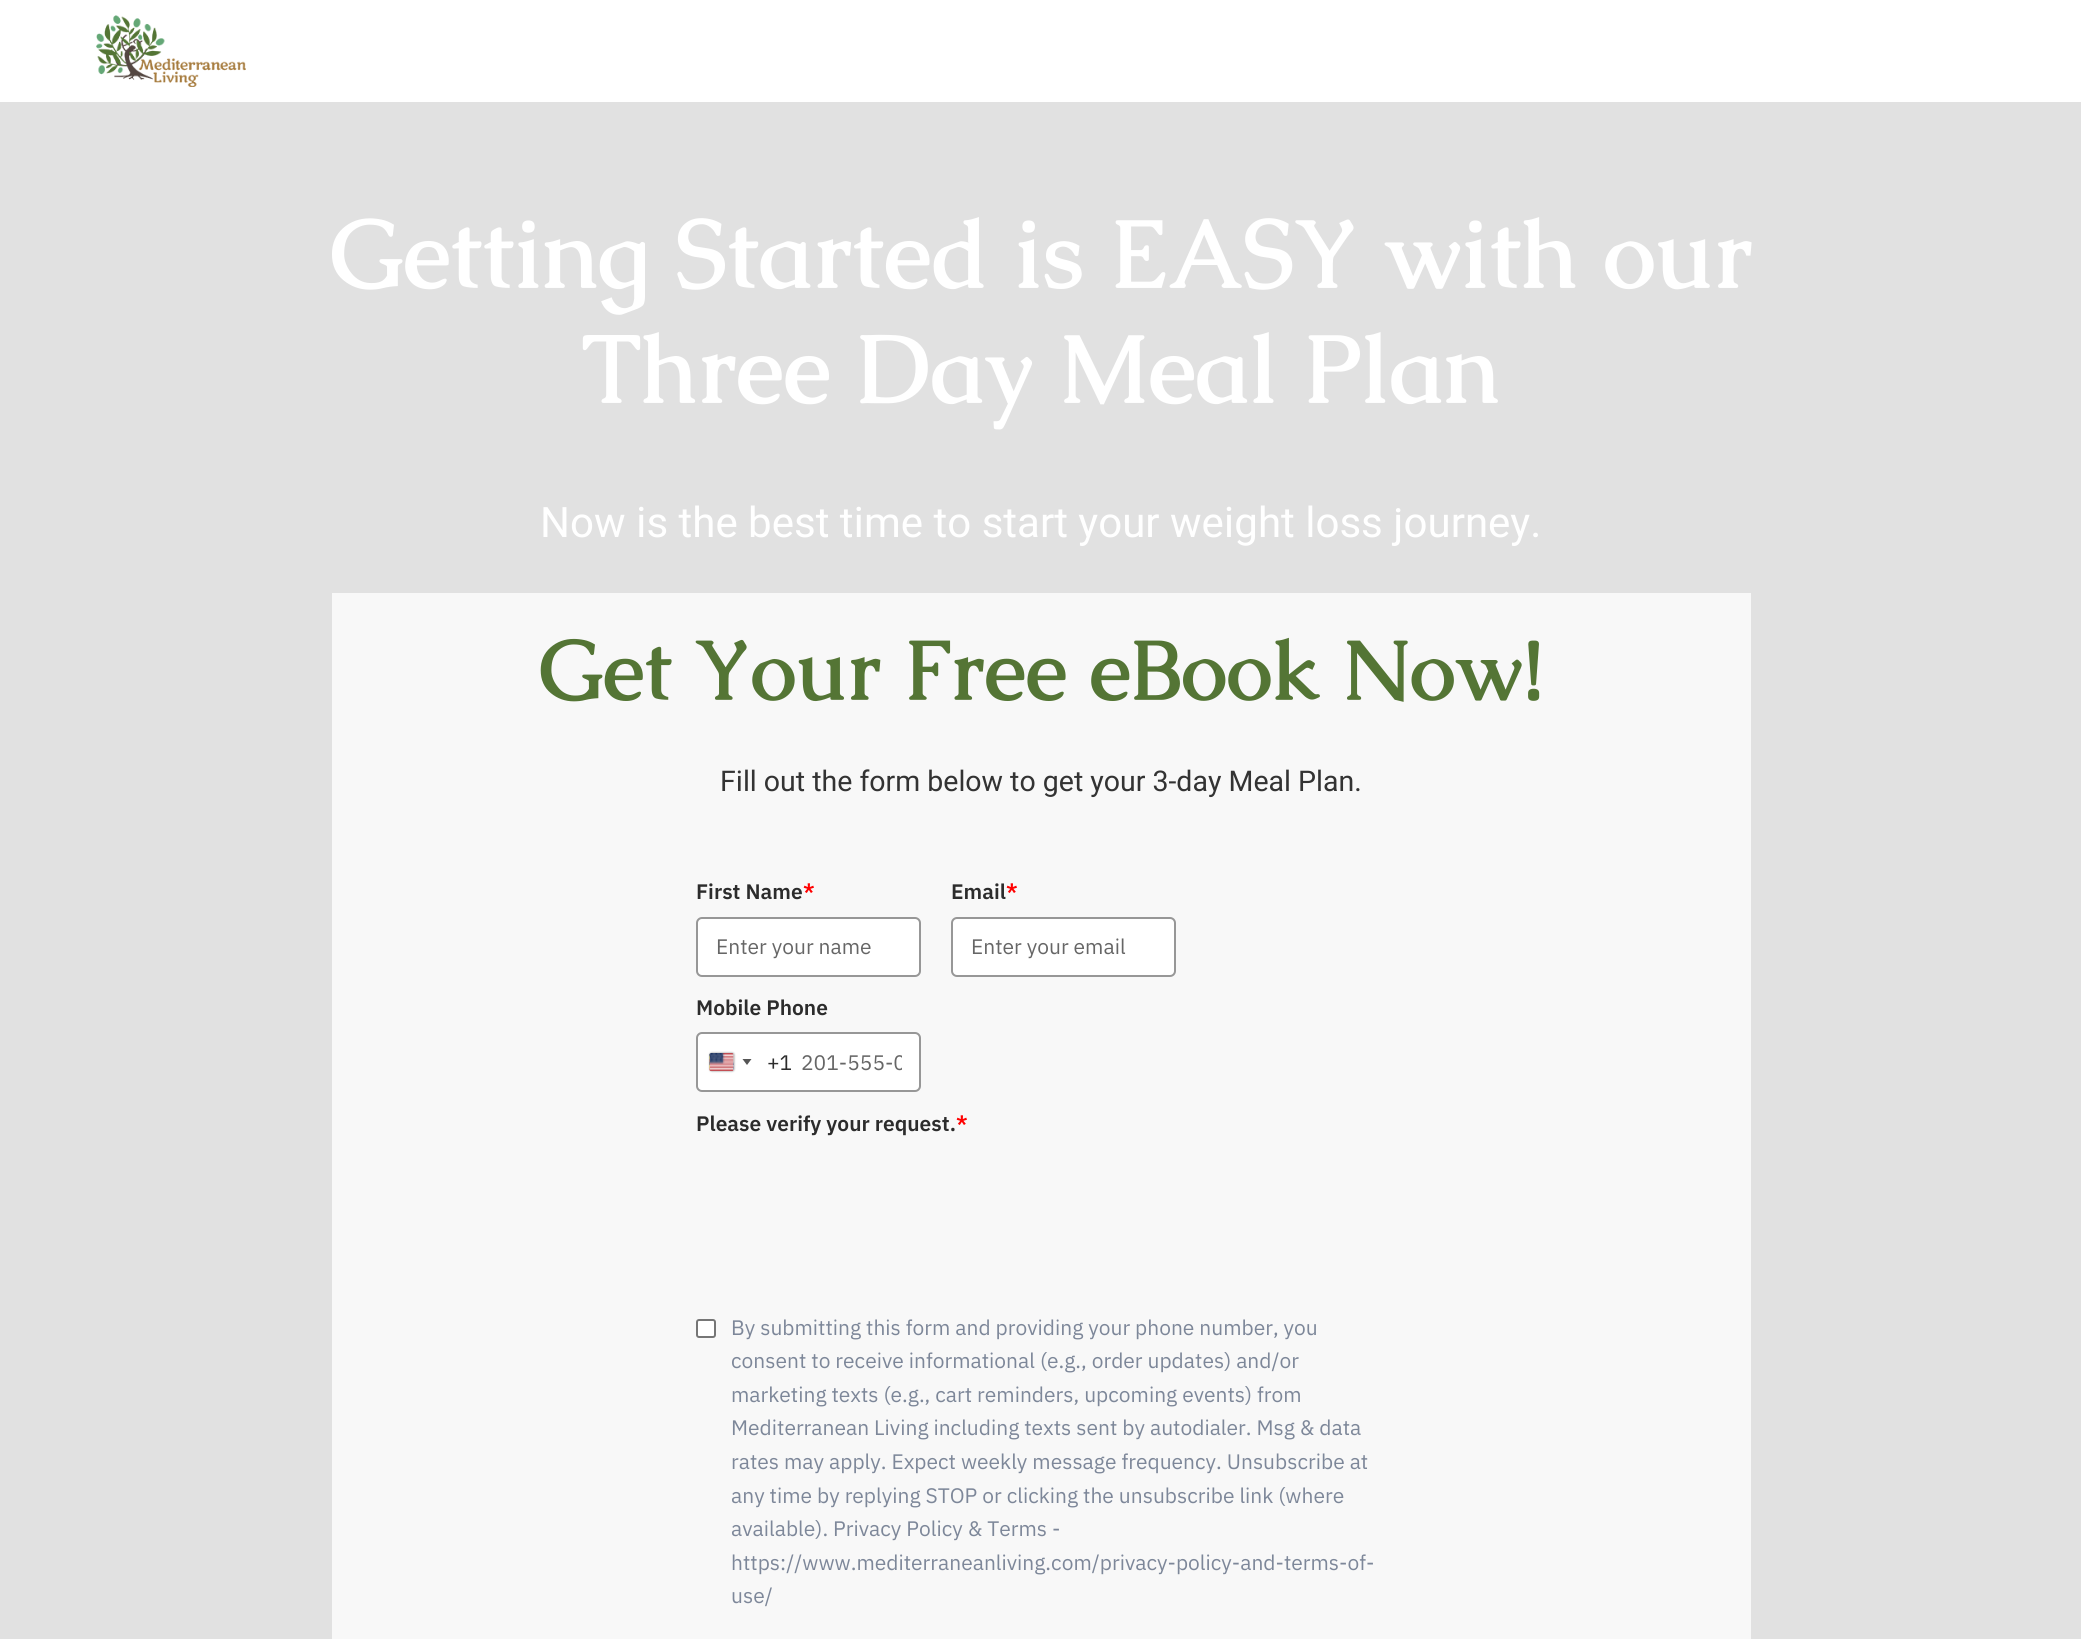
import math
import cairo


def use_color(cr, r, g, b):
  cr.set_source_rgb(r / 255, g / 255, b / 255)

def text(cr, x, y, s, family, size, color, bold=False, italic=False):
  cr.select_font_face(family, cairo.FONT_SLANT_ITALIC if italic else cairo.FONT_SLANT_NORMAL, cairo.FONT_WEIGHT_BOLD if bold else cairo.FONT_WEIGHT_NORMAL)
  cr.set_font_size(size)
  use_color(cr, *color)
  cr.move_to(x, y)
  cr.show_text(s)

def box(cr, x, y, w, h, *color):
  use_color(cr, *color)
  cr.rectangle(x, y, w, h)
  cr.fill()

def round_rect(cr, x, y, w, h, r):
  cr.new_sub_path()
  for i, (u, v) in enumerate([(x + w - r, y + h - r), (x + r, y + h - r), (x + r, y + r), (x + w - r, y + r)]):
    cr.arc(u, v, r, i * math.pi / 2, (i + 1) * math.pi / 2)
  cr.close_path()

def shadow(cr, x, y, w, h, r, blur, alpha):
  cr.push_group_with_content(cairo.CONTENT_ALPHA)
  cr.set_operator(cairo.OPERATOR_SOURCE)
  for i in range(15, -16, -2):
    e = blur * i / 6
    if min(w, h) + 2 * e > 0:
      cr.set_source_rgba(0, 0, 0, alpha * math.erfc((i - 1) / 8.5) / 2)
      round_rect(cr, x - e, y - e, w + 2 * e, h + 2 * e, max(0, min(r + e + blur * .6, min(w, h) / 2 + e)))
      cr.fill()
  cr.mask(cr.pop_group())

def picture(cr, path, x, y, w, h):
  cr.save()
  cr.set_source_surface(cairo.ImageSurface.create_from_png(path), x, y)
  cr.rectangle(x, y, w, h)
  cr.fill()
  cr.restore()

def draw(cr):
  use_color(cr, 255, 255, 255)
  cr.paint()
  picture(cr, "img_01.png", 96, 15, 150, 72)
  box(cr, 0, 102, 2081, 1537, 225, 225, 225)
  box(cr, 332, 593, 1419, 1046, 248, 248, 248)
  use_color(cr, 255, 255, 255)
  round_rect(cr, 697, 918, 223, 58, 5)
  cr.fill_preserve()
  use_color(cr, 151, 151, 151)
  cr.stroke()
  use_color(cr, 255, 255, 255)
  round_rect(cr, 952, 918, 223, 58, 5)
  cr.fill_preserve()
  use_color(cr, 151, 151, 151)
  cr.stroke()
  use_color(cr, 255, 255, 255)
  round_rect(cr, 697, 1033, 223, 58, 5)
  cr.fill_preserve()
  use_color(cr, 151, 151, 151)
  cr.stroke()
  use_color(cr, 136, 136, 136)
  shadow(cr, 710, 1053, 24, 18, 1.5, 1, 1)
  picture(cr, "img_02.png", 709, 1053, 25, 18)
  use_color(cr, 85, 85, 85)
  cr.new_path()
  cr.move_to(742.5, 1059)
  cr.line_to(751.5, 1059)
  cr.line_to(747, 1065)
  cr.close_path()
  cr.fill()
  use_color(cr, 255, 255, 255)
  round_rect(cr, 697, 1320, 18, 17, 2)
  cr.fill_preserve()
  use_color(cr, 118, 118, 118)
  cr.stroke()
  text(cr, 330, 287, "Getting Started is EASY with our", "Caudex", 96, (255, 255, 255), bold=True)
  text(cr, 582, 402, "Three Day Meal Plan", "Caudex", 96, (255, 255, 255), bold=True)
  text(cr, 540, 537, "Now is the best time to start your weight loss journey.", "Heebo", 42, (255, 255, 255))
  text(cr, 539, 699, "Get Your Free eBook Now!", "Caudex", 84, (84, 117, 53), bold=True)
  text(cr, 720, 791, "Fill out the form below to get your 3-day Meal Plan.", "Heebo", 28.5, (51, 51, 51))
  text(cr, 696, 899, "First Name", "IBM Plex Sans SemiBold", 21, (44, 44, 44))
  text(cr, 803, 899, "*", "IBM Plex Sans SemiBold", 21, (255, 0, 0))
  text(cr, 716, 954, "Enter your name", "IBM Plex Sans", 21, (102, 102, 102))
  text(cr, 951, 899, "Email", "IBM Plex Sans SemiBold", 21, (44, 44, 44))
  text(cr, 1006, 899, "*", "IBM Plex Sans SemiBold", 21, (255, 0, 0))
  text(cr, 971, 954, "Enter your email", "IBM Plex Sans", 21, (102, 102, 102))
  text(cr, 696, 1015, "Mobile Phone", "IBM Plex Sans SemiBold", 21, (44, 44, 44))
  text(cr, 767, 1070, "+1", "IBM Plex Sans", 21, (44, 44, 44))
  cr.save()
  cr.rectangle(801, 1049, 101, 27)
  cr.clip()
  text(cr, 801, 1070, "201-555-0", "IBM Plex Sans", 21, (102, 102, 102))
  cr.restore()
  text(cr, 696, 1131, "Please verify your request.", "IBM Plex Sans SemiBold", 21, (44, 44, 44))
  text(cr, 956, 1131, "*", "IBM Plex Sans SemiBold", 21, (255, 0, 0))
  text(cr, 731, 1335, "By submitting this form and providing your phone number, you", "IBM Plex Sans", 21, (125, 135, 153))
  text(cr, 731, 1368, "consent to receive informational (e.g., order updates) and/or", "IBM Plex Sans", 21, (125, 135, 153))
  text(cr, 731, 1402, "marketing texts (e.g., cart reminders, upcoming events) from", "IBM Plex Sans", 21, (125, 135, 153))
  text(cr, 731, 1435, "Mediterranean Living including texts sent by autodialer. Msg & data", "IBM Plex Sans", 21, (125, 135, 153))
  text(cr, 731, 1469, "rates may apply. Expect weekly message frequency. Unsubscribe at", "IBM Plex Sans", 21, (125, 135, 153))
  text(cr, 731, 1503, "any time by replying STOP or clicking the unsubscribe link (where", "IBM Plex Sans", 21, (125, 135, 153))
  text(cr, 731, 1536, "available). Privacy Policy & Terms -", "IBM Plex Sans", 21, (125, 135, 153))
  text(cr, 731, 1570, "https://www.mediterraneanliving.com/privacy-policy-and-terms-of-", "IBM Plex Sans", 21, (125, 135, 153))
  text(cr, 731, 1603, "use/", "IBM Plex Sans", 21, (125, 135, 153))


surface = cairo.ImageSurface(cairo.FORMAT_RGB24, 2081, 1639)
cr = cairo.Context(surface)
options = cairo.FontOptions()
options.set_hint_metrics(cairo.HINT_METRICS_OFF)
options.set_hint_style(cairo.HINT_STYLE_NONE)
cr.set_font_options(options)
cr.set_miter_limit(4)
draw(cr)
surface.write_to_png("out.png")
